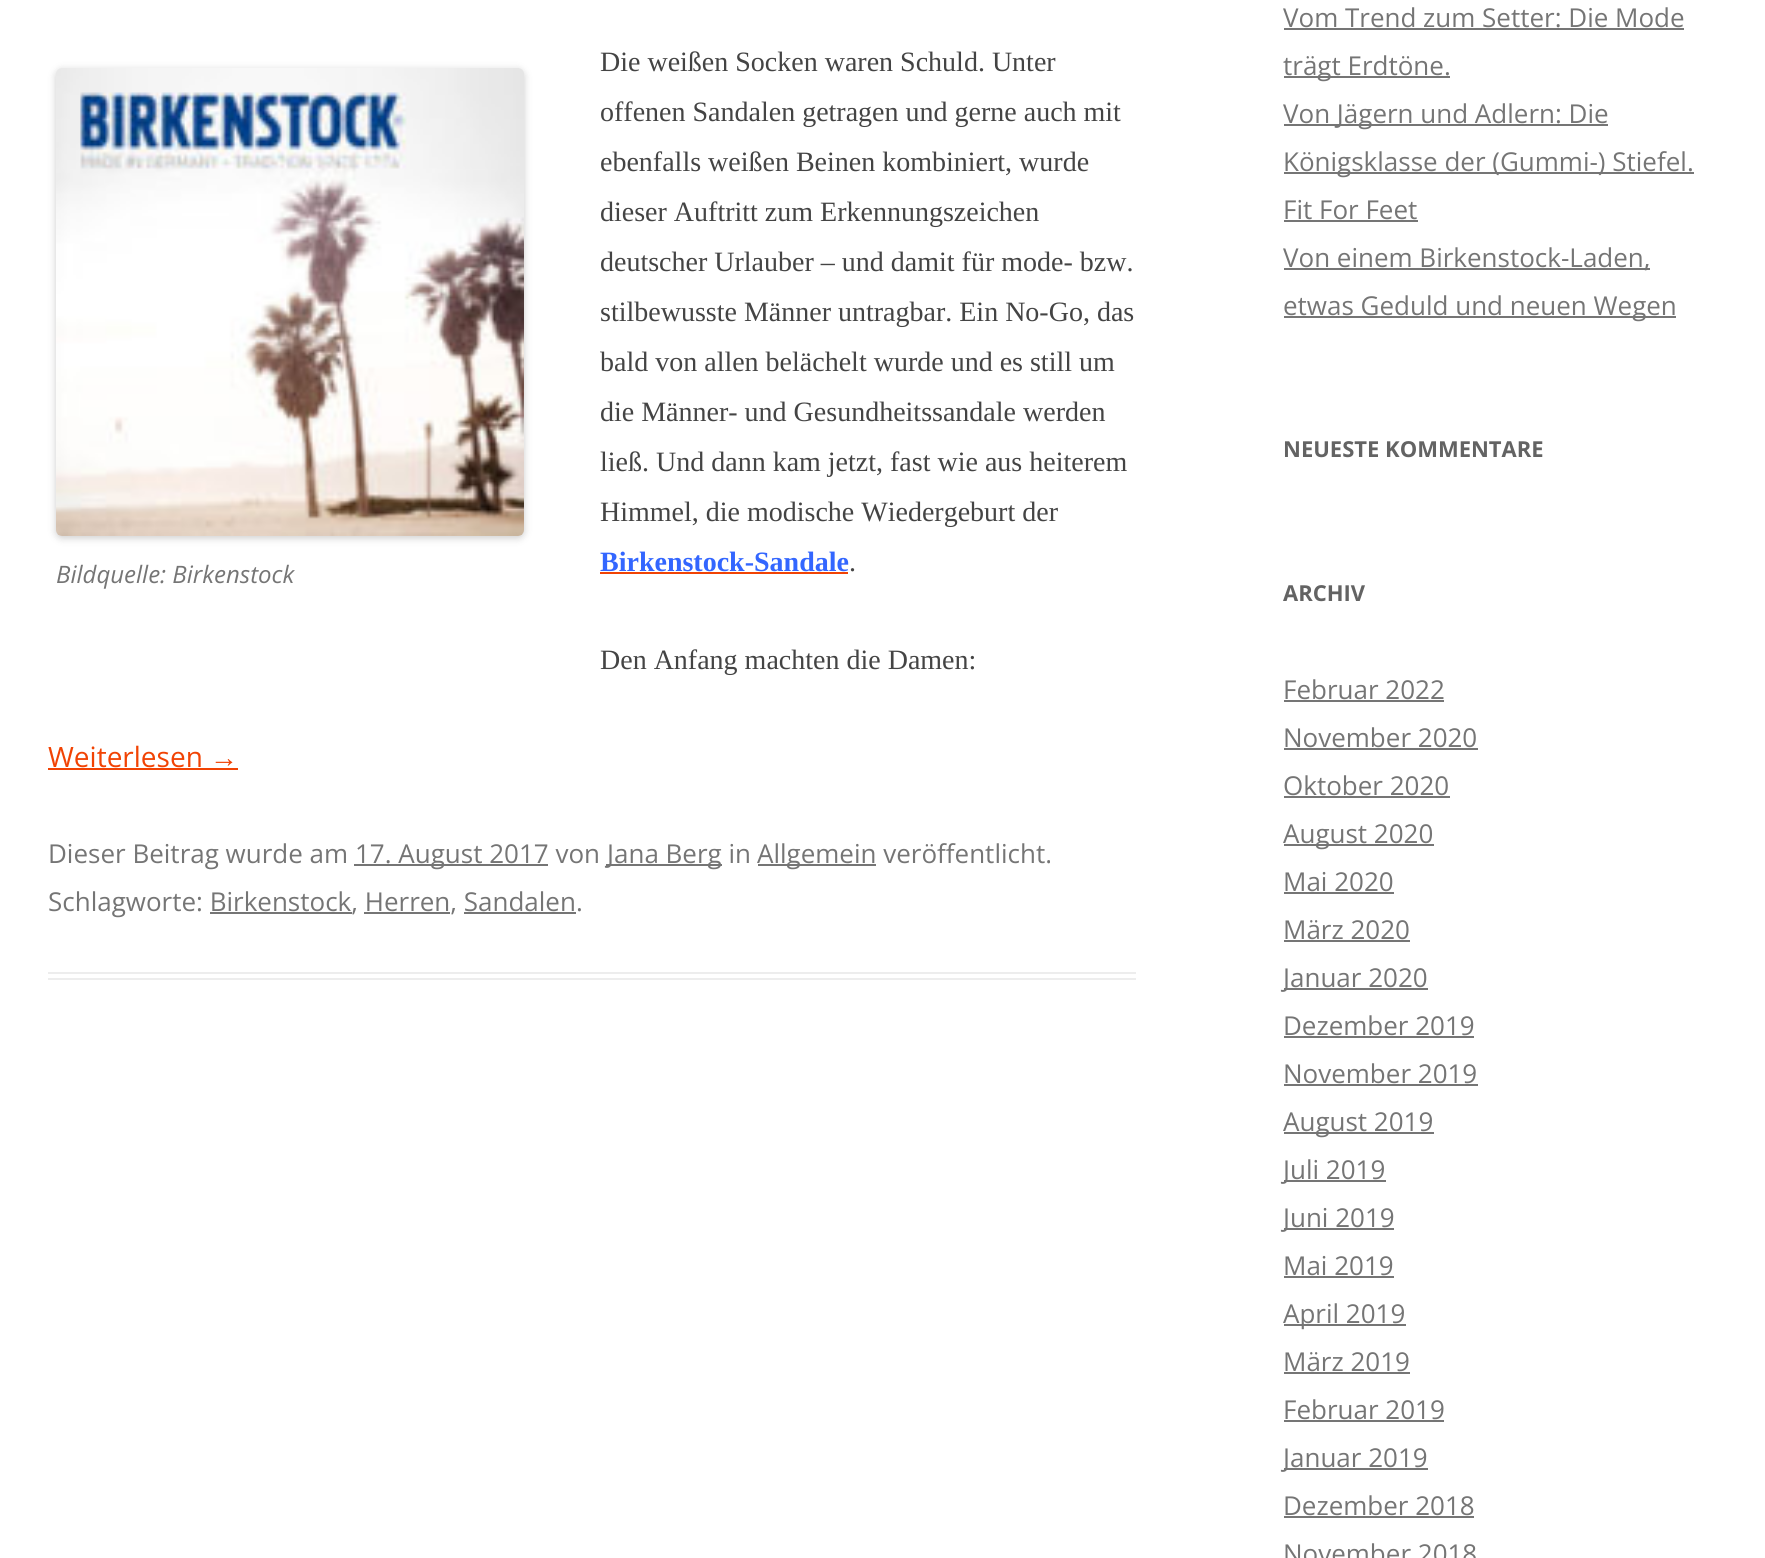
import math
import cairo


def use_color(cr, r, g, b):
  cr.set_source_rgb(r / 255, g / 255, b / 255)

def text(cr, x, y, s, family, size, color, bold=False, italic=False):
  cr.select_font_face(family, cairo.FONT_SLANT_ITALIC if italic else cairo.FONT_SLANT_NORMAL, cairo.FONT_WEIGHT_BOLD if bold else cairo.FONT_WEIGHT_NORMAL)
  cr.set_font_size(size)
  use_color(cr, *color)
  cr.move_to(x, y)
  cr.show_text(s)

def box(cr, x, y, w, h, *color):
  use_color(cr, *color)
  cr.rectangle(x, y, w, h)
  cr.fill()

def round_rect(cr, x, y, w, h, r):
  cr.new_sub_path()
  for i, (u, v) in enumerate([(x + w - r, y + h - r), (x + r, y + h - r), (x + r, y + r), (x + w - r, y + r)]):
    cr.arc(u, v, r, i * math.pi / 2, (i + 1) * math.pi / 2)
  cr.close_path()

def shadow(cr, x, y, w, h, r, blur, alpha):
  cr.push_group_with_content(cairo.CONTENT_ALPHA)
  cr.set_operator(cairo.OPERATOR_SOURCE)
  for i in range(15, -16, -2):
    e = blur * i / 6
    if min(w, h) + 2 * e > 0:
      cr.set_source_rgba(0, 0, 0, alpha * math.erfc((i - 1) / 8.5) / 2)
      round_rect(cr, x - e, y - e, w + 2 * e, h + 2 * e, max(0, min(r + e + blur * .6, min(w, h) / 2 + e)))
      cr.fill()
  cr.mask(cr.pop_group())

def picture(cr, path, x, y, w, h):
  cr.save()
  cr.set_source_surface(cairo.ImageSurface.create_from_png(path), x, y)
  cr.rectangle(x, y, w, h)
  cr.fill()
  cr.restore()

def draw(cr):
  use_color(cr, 255, 255, 255)
  cr.paint()
  box(cr, 48, 972, 1088, 2, 237, 237, 237)
  box(cr, 48, 978, 1088, 2, 237, 237, 237)
  box(cr, 600, 572, 248, 2, 241, 67, 4)
  use_color(cr, 0, 0, 0)
  shadow(cr, 56, 70, 468, 468, 6, 4, 0.2)
  picture(cr, "img_01.png", 56, 68, 468, 468)
  box(cr, 48, 768, 190, 2, 241, 67, 4)
  box(cr, 354, 864, 194, 2, 117, 117, 117)
  box(cr, 606, 864, 116, 2, 117, 117, 117)
  box(cr, 758, 864, 118, 2, 117, 117, 117)
  box(cr, 210, 912, 142, 2, 117, 117, 117)
  box(cr, 364, 912, 86, 2, 117, 117, 117)
  box(cr, 464, 912, 112, 2, 117, 117, 117)
  box(cr, 1284, 28, 400, 2, 117, 117, 117)
  box(cr, 1284, 76, 166, 2, 117, 117, 117)
  box(cr, 1284, 124, 324, 2, 117, 117, 117)
  box(cr, 1284, 172, 410, 2, 117, 117, 117)
  box(cr, 1284, 220, 134, 2, 117, 117, 117)
  box(cr, 1284, 268, 366, 2, 117, 117, 117)
  box(cr, 1284, 316, 392, 2, 117, 117, 117)
  box(cr, 1284, 700, 160, 2, 117, 117, 117)
  box(cr, 1284, 748, 194, 2, 117, 117, 117)
  box(cr, 1284, 796, 166, 2, 117, 117, 117)
  box(cr, 1284, 844, 150, 2, 117, 117, 117)
  box(cr, 1284, 892, 110, 2, 117, 117, 117)
  box(cr, 1284, 940, 126, 2, 117, 117, 117)
  box(cr, 1284, 988, 144, 2, 117, 117, 117)
  box(cr, 1284, 1036, 190, 2, 117, 117, 117)
  box(cr, 1284, 1084, 194, 2, 117, 117, 117)
  box(cr, 1284, 1132, 150, 2, 117, 117, 117)
  box(cr, 1284, 1180, 102, 2, 117, 117, 117)
  box(cr, 1284, 1228, 110, 2, 117, 117, 117)
  box(cr, 1284, 1276, 110, 2, 117, 117, 117)
  box(cr, 1284, 1324, 122, 2, 117, 117, 117)
  box(cr, 1284, 1372, 126, 2, 117, 117, 117)
  box(cr, 1284, 1420, 160, 2, 117, 117, 117)
  box(cr, 1284, 1468, 144, 2, 117, 117, 117)
  box(cr, 1284, 1516, 190, 2, 117, 117, 117)
  text(cr, 600, 71, "Die weißen Socken waren Schuld. Unter", "Liberation Serif", 28, (68, 68, 68))
  text(cr, 600, 121, "offenen Sandalen getragen und gerne auch mit", "Liberation Serif", 28, (68, 68, 68))
  text(cr, 600, 171, "ebenfalls weißen Beinen kombiniert, wurde", "Liberation Serif", 28, (68, 68, 68))
  text(cr, 600, 221, "dieser Auftritt zum Erkennungszeichen", "Liberation Serif", 28, (68, 68, 68))
  text(cr, 600, 271, "deutscher Urlauber – und damit für mode- bzw.", "Liberation Serif", 28, (68, 68, 68))
  text(cr, 600, 321, "stilbewusste Männer untragbar. Ein No-Go, das", "Liberation Serif", 28, (68, 68, 68))
  text(cr, 600, 371, "bald von allen belächelt wurde und es still um", "Liberation Serif", 28, (68, 68, 68))
  text(cr, 600, 421, "die Männer- und Gesundheitssandale werden", "Liberation Serif", 28, (68, 68, 68))
  text(cr, 600, 471, "ließ. Und dann kam jetzt, fast wie aus heiterem", "Liberation Serif", 28, (68, 68, 68))
  text(cr, 600, 521, "Himmel, die modische Wiedergeburt der", "Liberation Serif", 28, (68, 68, 68))
  text(cr, 600, 571, "Birkenstock-Sandale", "Liberation Serif", 28, (51, 102, 255), bold=True)
  text(cr, 849, 571, ".", "Liberation Serif", 28, (68, 68, 68))
  text(cr, 56, 583, "Bildquelle: Birkenstock", "Open Sans", 24, (117, 117, 117), italic=True)
  text(cr, 600, 669, "Den Anfang machten die Damen:", "Liberation Serif", 28, (68, 68, 68))
  text(cr, 48, 767, "Weiterlesen", "Open Sans", 28, (241, 67, 4))
  text(cr, 210, 767, "→", "Liberation Sans", 28, (241, 67, 4))
  text(cr, 48, 863, "Dieser Beitrag wurde am", "Open Sans", 26, (117, 117, 117))
  text(cr, 355, 863, "17. August 2017 von", "Open Sans", 26, (117, 117, 117))
  text(cr, 607, 863, "Jana Berg in", "Open Sans", 26, (117, 117, 117))
  text(cr, 757, 863, "Allgemein veröffentlicht.", "Open Sans", 26, (117, 117, 117))
  text(cr, 48, 911, "Schlagworte: Birkenstock, Herren, Sandalen.", "Open Sans", 26, (117, 117, 117))
  text(cr, 1283, 27, "Vom Trend zum Setter: Die Mode", "Open Sans", 26, (117, 117, 117))
  text(cr, 1283, 75, "trägt Erdtöne.", "Open Sans", 26, (117, 117, 117))
  text(cr, 1283, 123, "Von Jägern und Adlern: Die", "Open Sans", 26, (117, 117, 117))
  text(cr, 1283, 171, "Königsklasse der (Gummi-) Stiefel.", "Open Sans", 26, (117, 117, 117))
  text(cr, 1283, 219, "Fit For Feet", "Open Sans", 26, (117, 117, 117))
  text(cr, 1283, 267, "Von einem Birkenstock-Laden,", "Open Sans", 26, (117, 117, 117))
  text(cr, 1283, 315, "etwas Geduld und neuen Wegen", "Open Sans", 26, (117, 117, 117))
  text(cr, 1283, 457, "NEUESTE KOMMENTARE", "Open Sans", 22, (99, 99, 99), bold=True)
  text(cr, 1283, 601, "ARCHIV", "Open Sans", 22, (99, 99, 99), bold=True)
  text(cr, 1283, 699, "Februar 2022", "Open Sans", 26, (117, 117, 117))
  text(cr, 1283, 747, "November 2020", "Open Sans", 26, (117, 117, 117))
  text(cr, 1283, 795, "Oktober 2020", "Open Sans", 26, (117, 117, 117))
  text(cr, 1283, 843, "August 2020", "Open Sans", 26, (117, 117, 117))
  text(cr, 1283, 891, "Mai 2020", "Open Sans", 26, (117, 117, 117))
  text(cr, 1283, 939, "März 2020", "Open Sans", 26, (117, 117, 117))
  text(cr, 1283, 987, "Januar 2020", "Open Sans", 26, (117, 117, 117))
  text(cr, 1283, 1035, "Dezember 2019", "Open Sans", 26, (117, 117, 117))
  text(cr, 1283, 1083, "November 2019", "Open Sans", 26, (117, 117, 117))
  text(cr, 1283, 1131, "August 2019", "Open Sans", 26, (117, 117, 117))
  text(cr, 1283, 1179, "Juli 2019", "Open Sans", 26, (117, 117, 117))
  text(cr, 1283, 1227, "Juni 2019", "Open Sans", 26, (117, 117, 117))
  text(cr, 1283, 1275, "Mai 2019", "Open Sans", 26, (117, 117, 117))
  text(cr, 1283, 1323, "April 2019", "Open Sans", 26, (117, 117, 117))
  text(cr, 1283, 1371, "März 2019", "Open Sans", 26, (117, 117, 117))
  text(cr, 1283, 1419, "Februar 2019", "Open Sans", 26, (117, 117, 117))
  text(cr, 1283, 1467, "Januar 2019", "Open Sans", 26, (117, 117, 117))
  text(cr, 1283, 1515, "Dezember 2018", "Open Sans", 26, (117, 117, 117))
  text(cr, 1283, 1563, "November 2018", "Open Sans", 26, (117, 117, 117))


surface = cairo.ImageSurface(cairo.FORMAT_RGB24, 1765, 1558)
cr = cairo.Context(surface)
options = cairo.FontOptions()
options.set_hint_metrics(cairo.HINT_METRICS_OFF)
options.set_hint_style(cairo.HINT_STYLE_NONE)
cr.set_font_options(options)
cr.set_miter_limit(4)
draw(cr)
surface.write_to_png("out.png")
